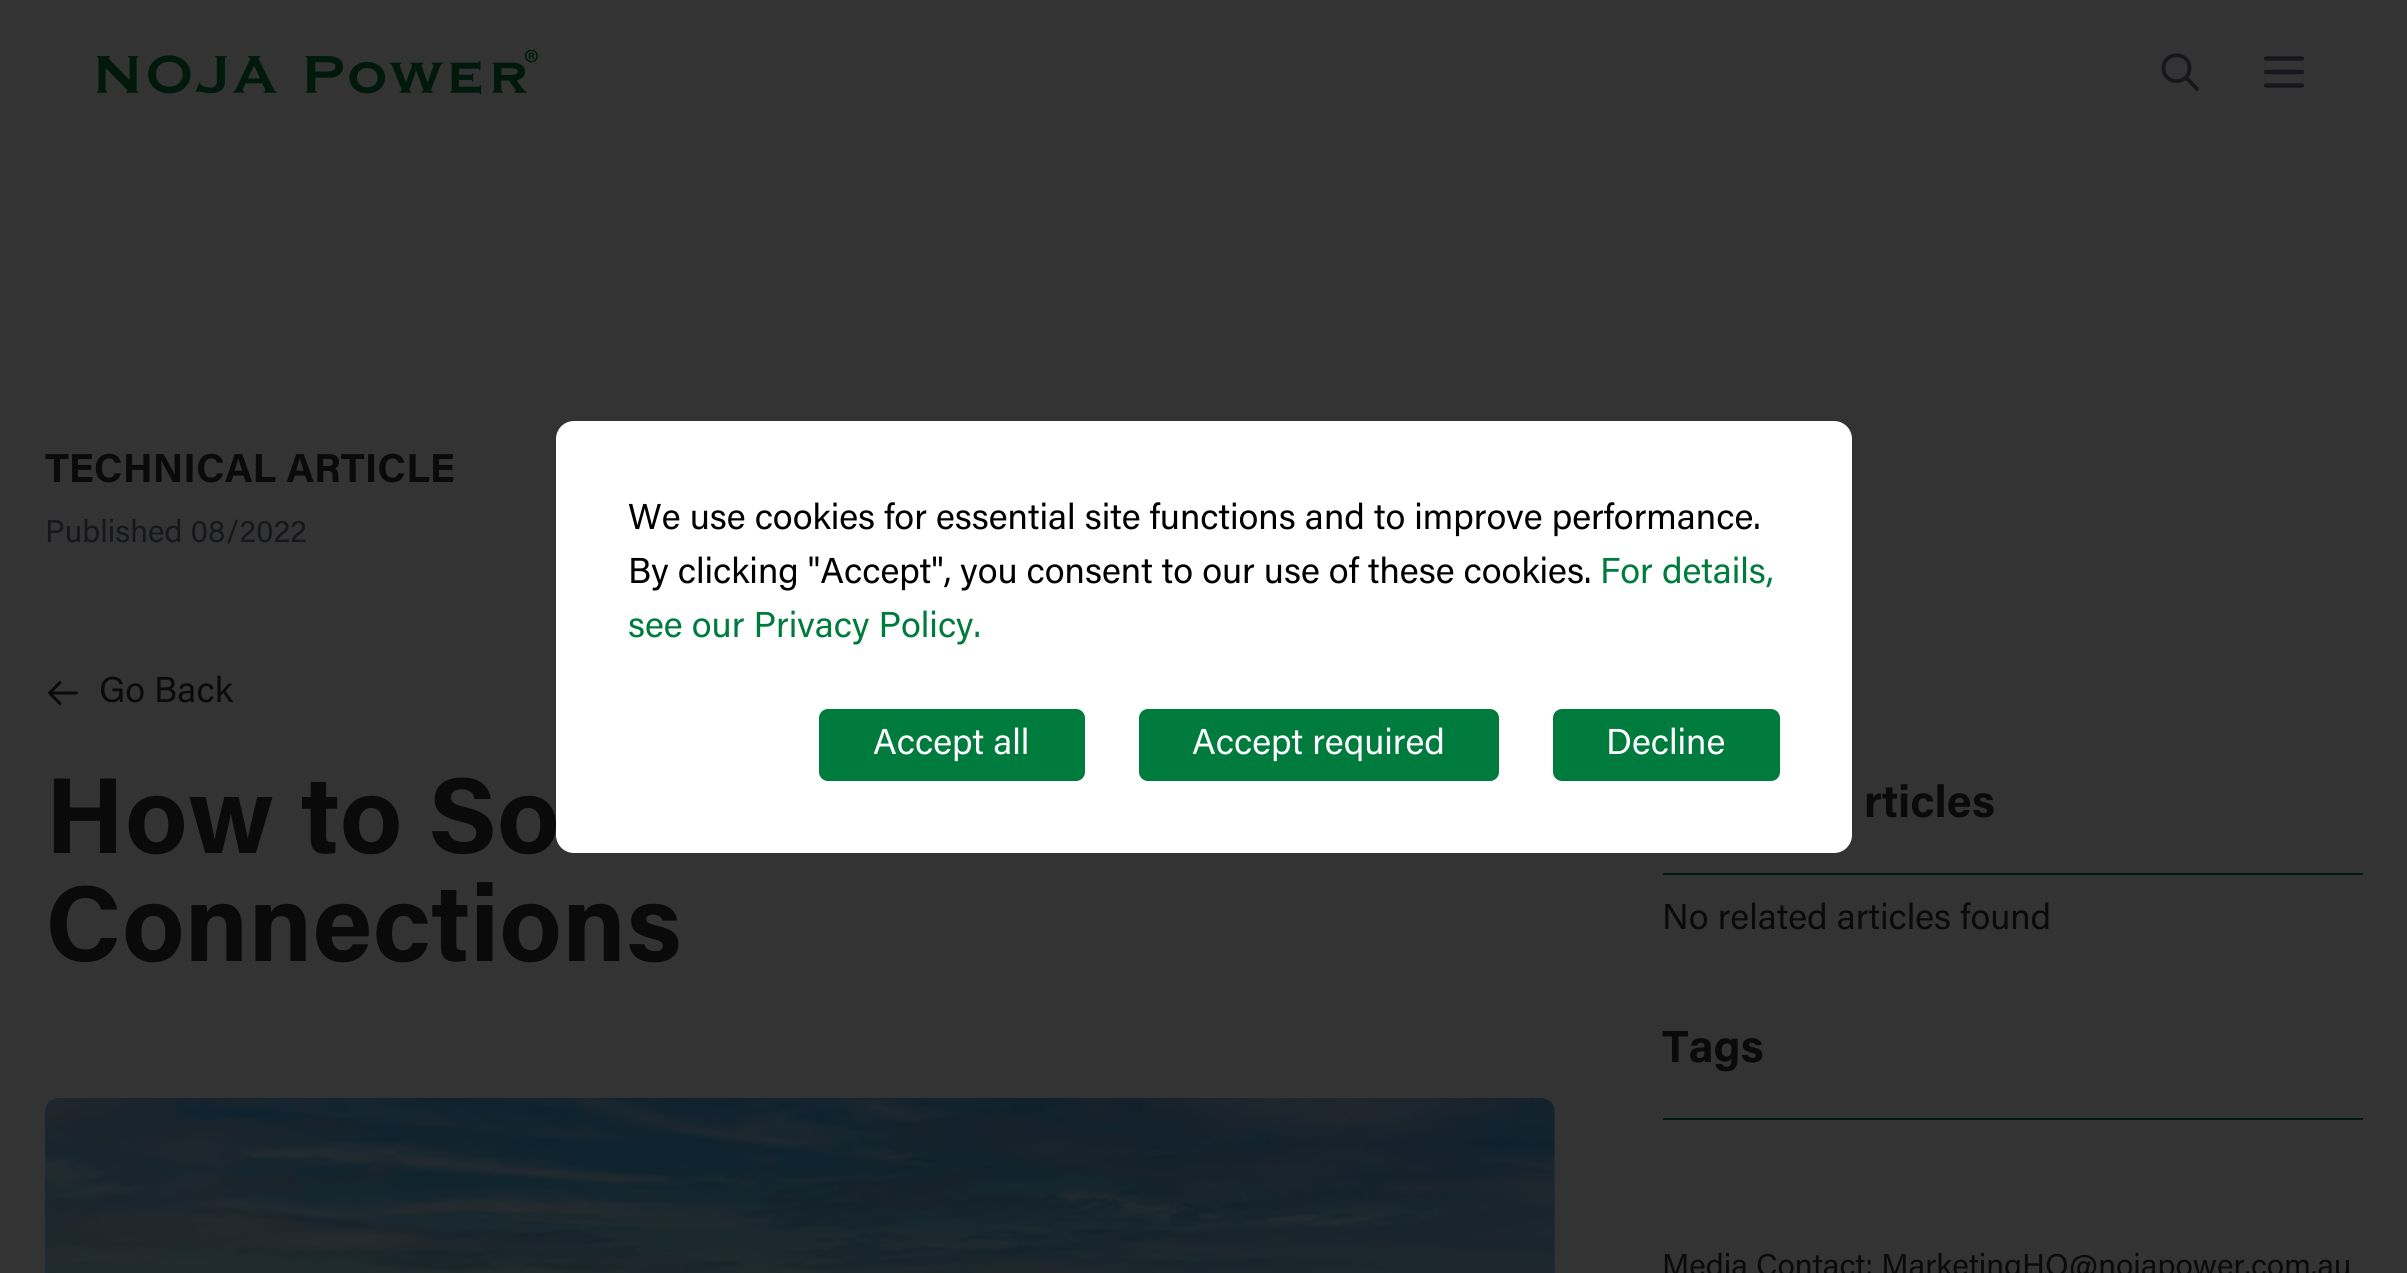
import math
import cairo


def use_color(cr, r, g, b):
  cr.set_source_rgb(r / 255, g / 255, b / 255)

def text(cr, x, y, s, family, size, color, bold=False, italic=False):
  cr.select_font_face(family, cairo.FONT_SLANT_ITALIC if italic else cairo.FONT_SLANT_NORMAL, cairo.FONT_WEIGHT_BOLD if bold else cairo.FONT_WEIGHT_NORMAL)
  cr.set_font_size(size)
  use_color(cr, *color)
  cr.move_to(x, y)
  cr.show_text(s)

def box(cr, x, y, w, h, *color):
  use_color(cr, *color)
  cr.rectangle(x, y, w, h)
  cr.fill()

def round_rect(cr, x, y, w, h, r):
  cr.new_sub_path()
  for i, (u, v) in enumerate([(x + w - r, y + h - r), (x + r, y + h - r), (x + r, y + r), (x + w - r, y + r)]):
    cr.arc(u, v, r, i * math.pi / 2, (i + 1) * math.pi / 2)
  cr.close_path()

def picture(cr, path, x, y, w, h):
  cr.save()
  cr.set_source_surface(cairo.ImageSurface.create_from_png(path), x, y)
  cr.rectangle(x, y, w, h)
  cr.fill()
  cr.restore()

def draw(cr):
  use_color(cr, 51, 51, 51)
  cr.paint()
  picture(cr, "img_01.png", 97, 50, 441, 45)
  cr.new_path()
  cr.move_to(2197, 89)
  cr.line_to(2186, 77.5)
  cr.move_to(2189.5, 68)
  cr.curve_to(2189.5, 85.5, 2163.5, 85.5, 2163.5, 68)
  cr.curve_to(2163.5, 51, 2189.5, 51, 2189.5, 68)
  cr.close_path()
  use_color(cr, 21, 23, 26)
  cr.set_line_width(3.8)
  cr.set_line_cap(cairo.LINE_CAP_ROUND)
  cr.set_line_join(cairo.LINE_JOIN_ROUND)
  cr.stroke()
  cr.new_path()
  cr.move_to(2266, 58.5)
  cr.line_to(2302, 58.5)
  cr.move_to(2266, 72)
  cr.line_to(2302, 72)
  cr.move_to(2266, 85.5)
  cr.line_to(2302, 85.5)
  cr.set_line_width(4.5)
  cr.stroke()
  cr.new_path()
  cr.move_to(60, 703.5)
  cr.line_to(49.5, 693)
  cr.move_to(49.5, 693)
  cr.line_to(60, 682.5)
  cr.move_to(49.5, 693)
  cr.line_to(76.5, 693)
  use_color(cr, 10, 10, 10)
  cr.set_line_width(3)
  cr.stroke()
  picture(cr, "img_02.png", 45, 1098, 1510, 175)
  box(cr, 1663, 873, 700, 2, 0, 25, 12)
  box(cr, 1663, 1118, 700, 2, 0, 25, 12)
  text(cr, 45, 482, "TECHNICAL ARTICLE", "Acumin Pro", 40.5, (10, 10, 10), bold=True)
  text(cr, 45, 542, "Published 08/2022", "Acumin Pro", 31.5, (21, 23, 26))
  text(cr, 99, 702, "Go Back", "Acumin Pro", 36, (10, 10, 10))
  text(cr, 45, 853, "How to So", "Acumin Pro", 108, (10, 10, 10), bold=True)
  text(cr, 45, 961, "Connections", "Acumin Pro", 108, (10, 10, 10), bold=True)
  text(cr, 1864, 817, "rticles", "Acumin Pro", 45, (10, 10, 10), bold=True)
  text(cr, 1662, 929, "No related articles found", "Acumin Pro", 36, (10, 10, 10))
  text(cr, 1662, 1062, "Tags", "Acumin Pro", 45, (10, 10, 10), bold=True)
  text(cr, 1662, 1276, "Media Contact: MarketingHQ@nojapower.com.au", "Acumin Pro", 31.5, (10, 10, 10))
  use_color(cr, 255, 255, 255)
  round_rect(cr, 556, 421, 1296, 432, 18)
  cr.fill()
  text(cr, 628, 529, "We use cookies for essential site functions and to improve performance.", "Acumin Pro", 36, (0, 0, 0))
  text(cr, 628, 583, "By clicking \"Accept\", you consent to our use of these cookies.", "Acumin Pro", 36, (0, 0, 0))
  text(cr, 1600, 583, "For details,", "Acumin Pro", 36, (0, 123, 62))
  text(cr, 628, 637, "see our Privacy Policy.", "Acumin Pro", 36, (0, 123, 62))
  round_rect(cr, 819, 709, 266, 72, 9)
  cr.fill()
  text(cr, 873, 754, "Accept all", "Acumin Pro", 36, (255, 255, 255))
  use_color(cr, 0, 123, 62)
  round_rect(cr, 1139, 709, 360, 72, 9)
  cr.fill()
  text(cr, 1192, 754, "Accept required", "Acumin Pro", 36, (255, 255, 255))
  use_color(cr, 0, 123, 62)
  round_rect(cr, 1553, 709, 227, 72, 9)
  cr.fill()
  text(cr, 1606, 754, "Decline", "Acumin Pro", 36, (255, 255, 255))


surface = cairo.ImageSurface(cairo.FORMAT_RGB24, 2407, 1273)
cr = cairo.Context(surface)
options = cairo.FontOptions()
options.set_hint_metrics(cairo.HINT_METRICS_OFF)
options.set_hint_style(cairo.HINT_STYLE_NONE)
cr.set_font_options(options)
cr.set_miter_limit(4)
draw(cr)
surface.write_to_png("out.png")
